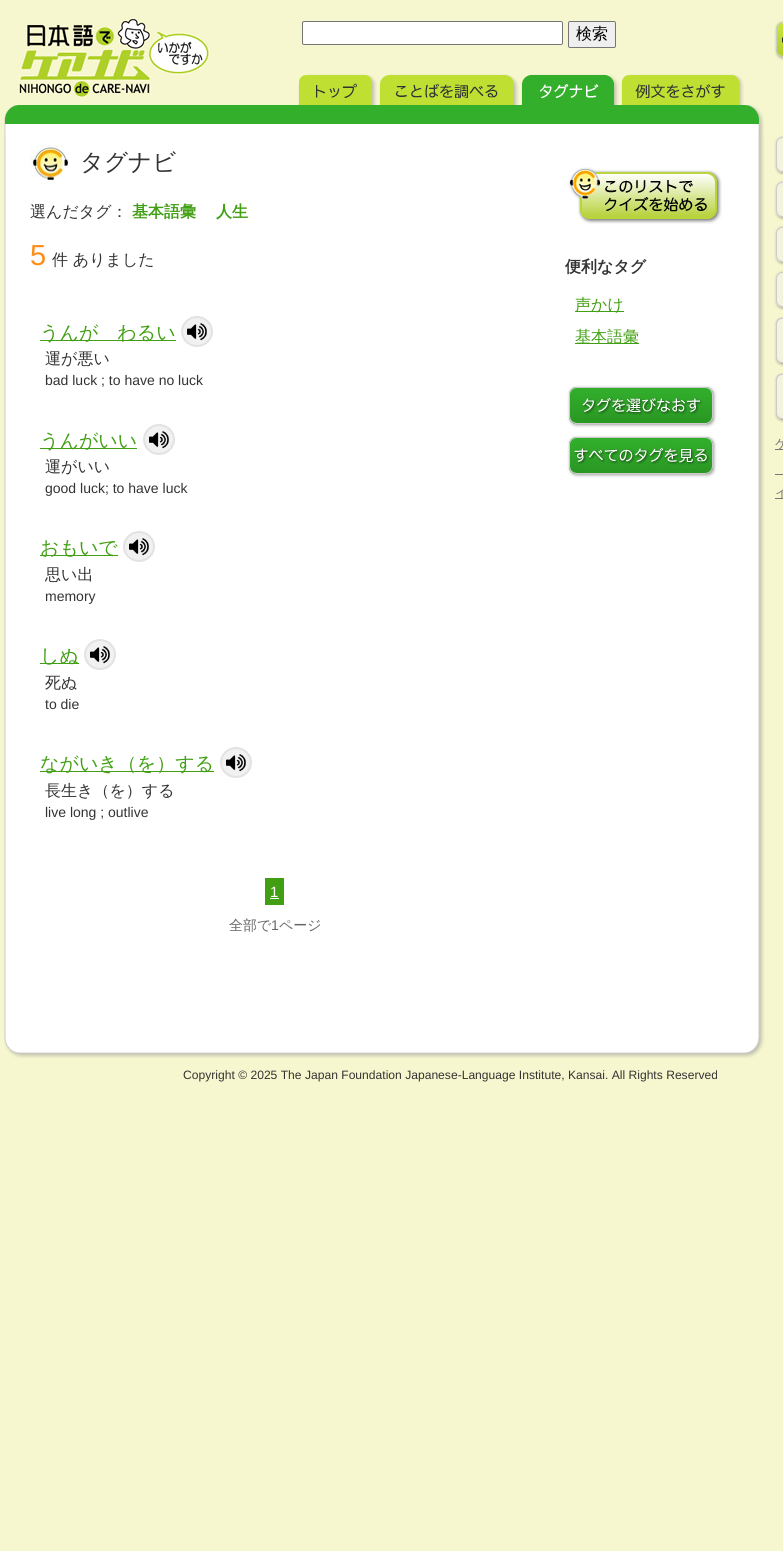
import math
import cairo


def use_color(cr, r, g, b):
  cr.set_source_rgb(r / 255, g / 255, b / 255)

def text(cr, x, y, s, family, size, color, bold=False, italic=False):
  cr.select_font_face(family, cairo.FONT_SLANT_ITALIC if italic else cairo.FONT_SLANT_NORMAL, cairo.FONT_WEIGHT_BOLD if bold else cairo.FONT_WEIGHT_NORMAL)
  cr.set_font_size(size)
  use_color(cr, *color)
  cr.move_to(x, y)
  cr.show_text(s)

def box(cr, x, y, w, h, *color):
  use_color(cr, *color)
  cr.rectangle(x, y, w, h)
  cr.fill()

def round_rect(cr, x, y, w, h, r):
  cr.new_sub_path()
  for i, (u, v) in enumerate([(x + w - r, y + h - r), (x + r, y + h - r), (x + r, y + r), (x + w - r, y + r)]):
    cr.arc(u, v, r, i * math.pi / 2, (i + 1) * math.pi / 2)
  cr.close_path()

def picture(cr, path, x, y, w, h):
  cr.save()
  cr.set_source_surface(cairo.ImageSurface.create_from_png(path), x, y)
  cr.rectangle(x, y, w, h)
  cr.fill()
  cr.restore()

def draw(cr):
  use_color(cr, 247, 247, 207)
  cr.paint()
  picture(cr, "img_01.png", 18, 18, 192, 80)
  use_color(cr, 255, 255, 255)
  round_rect(cr, 302.5, 21.5, 260, 23, 1.5)
  cr.fill_preserve()
  use_color(cr, 118, 118, 118)
  cr.set_line_width(1)
  cr.stroke()
  use_color(cr, 239, 239, 239)
  round_rect(cr, 568.5, 21.5, 47, 26, 1.5)
  cr.fill_preserve()
  use_color(cr, 118, 118, 118)
  cr.stroke()
  picture(cr, "img_02.png", 774, 20, 9, 40)
  picture(cr, "img_03.png", 4, 105, 760, 30)
  picture(cr, "img_04.png", 298, 74, 79, 31)
  picture(cr, "img_05.png", 379, 74, 140, 31)
  picture(cr, "img_06.png", 521, 74, 98, 31)
  picture(cr, "img_07.png", 621, 74, 123, 31)
  picture(cr, "img_08.png", 4, 135, 761, 881)
  picture(cr, "img_09.png", 30, 145, 38, 35)
  box(cr, 40, 340, 136, 1, 65, 159, 19)
  picture(cr, "img_10.png", 181, 316, 32, 31)
  box(cr, 40, 448, 97, 1, 65, 159, 19)
  picture(cr, "img_10.png", 143, 424, 32, 31)
  box(cr, 40, 555, 78, 1, 65, 159, 19)
  picture(cr, "img_10.png", 123, 531, 32, 31)
  box(cr, 40, 663, 39, 1, 65, 159, 19)
  picture(cr, "img_10.png", 84, 639, 32, 31)
  box(cr, 40, 771, 174, 1, 65, 159, 19)
  picture(cr, "img_10.png", 220, 747, 32, 31)
  box(cr, 265, 878, 19, 27, 65, 159, 19)
  box(cr, 270, 898, 9, 1, 255, 255, 255)
  picture(cr, "img_11.png", 568, 167, 154, 57)
  box(cr, 575, 311, 49, 1, 65, 159, 19)
  box(cr, 575, 343, 64, 1, 65, 159, 19)
  picture(cr, "img_12.png", 567, 385, 150, 43)
  picture(cr, "img_13.png", 567, 435, 150, 43)
  picture(cr, "img_14.png", 774, 135, 9, 40)
  picture(cr, "img_15.png", 774, 180, 9, 40)
  picture(cr, "img_15.png", 774, 225, 9, 40)
  picture(cr, "img_15.png", 774, 270, 9, 40)
  picture(cr, "img_16.png", 774, 316, 9, 51)
  picture(cr, "img_16.png", 774, 372, 9, 51)
  box(cr, 775, 449, 8, 1, 119, 119, 119)
  box(cr, 775, 474, 8, 1, 119, 119, 119)
  box(cr, 775, 498, 8, 1, 119, 119, 119)
  picture(cr, "img_17.png", 4, 1016, 761, 42)
  text(cr, 576, 39, "検索", "WenQuanYi Zen Hei Medium", 16, (0, 0, 0))
  text(cr, 80, 170, "タグナビ", "WenQuanYi Zen Hei Medium", 23.5, (51, 51, 51))
  text(cr, 30, 217, "選んだタグ：", "WenQuanYi Zen Hei Medium", 16, (51, 51, 51))
  text(cr, 132, 217, "基本語彙", "WenQuanYi Zen Hei", 16, (65, 159, 19), bold=True)
  text(cr, 216, 217, "人生", "WenQuanYi Zen Hei", 16, (65, 159, 19), bold=True)
  text(cr, 30, 265, "5", "Liberation Sans", 29, (255, 142, 25))
  text(cr, 52, 265, "件 ありました", "WenQuanYi Zen Hei Medium", 16, (51, 51, 51))
  text(cr, 40, 339, "うんが　わるい", "WenQuanYi Zen Hei Medium", 19, (65, 159, 19))
  text(cr, 45, 364, "運が悪い", "WenQuanYi Zen Hei Medium", 16, (51, 51, 51))
  text(cr, 45, 385, "bad luck ; to have no luck", "Liberation Sans", 14, (51, 51, 51))
  text(cr, 40, 447, "うんがいい", "WenQuanYi Zen Hei Medium", 19, (65, 159, 19))
  text(cr, 45, 472, "運がいい", "WenQuanYi Zen Hei Medium", 16, (51, 51, 51))
  text(cr, 45, 493, "good luck; to have luck", "Liberation Sans", 14, (51, 51, 51))
  text(cr, 40, 554, "おもいで", "WenQuanYi Zen Hei Medium", 19, (65, 159, 19))
  text(cr, 45, 580, "思い出", "WenQuanYi Zen Hei Medium", 16, (51, 51, 51))
  text(cr, 45, 601, "memory", "Liberation Sans", 14, (51, 51, 51))
  text(cr, 40, 662, "しぬ", "WenQuanYi Zen Hei Medium", 19, (65, 159, 19))
  text(cr, 45, 688, "死ぬ", "WenQuanYi Zen Hei Medium", 16, (51, 51, 51))
  text(cr, 45, 709, "to die", "Liberation Sans", 14, (51, 51, 51))
  text(cr, 40, 770, "ながいき（を）する", "WenQuanYi Zen Hei Medium", 19, (65, 159, 19))
  text(cr, 45, 796, "長生き（を）する", "WenQuanYi Zen Hei Medium", 16, (51, 51, 51))
  text(cr, 45, 817, "live long ; outlive", "Liberation Sans", 14, (51, 51, 51))
  text(cr, 270, 897, "1", "Liberation Sans", 15, (255, 255, 255))
  text(cr, 229, 930, "全部で", "WenQuanYi Zen Hei Medium", 14, (102, 102, 102))
  text(cr, 271, 930, "1", "Liberation Sans", 14, (102, 102, 102))
  text(cr, 279, 930, "ページ", "WenQuanYi Zen Hei Medium", 14, (102, 102, 102))
  text(cr, 565, 272, "便利なタグ", "WenQuanYi Zen Hei", 16, (51, 51, 51), bold=True)
  text(cr, 575, 310, "声かけ", "WenQuanYi Zen Hei Medium", 16, (65, 159, 19))
  text(cr, 575, 342, "基本語彙", "WenQuanYi Zen Hei Medium", 16, (65, 159, 19))
  text(cr, 775, 448, "ケ", "WenQuanYi Zen Hei Medium", 13, (119, 119, 119))
  text(cr, 775, 497, "イ", "WenQuanYi Zen Hei Medium", 13, (119, 119, 119))
  text(cr, 183, 1079, "Copyright © 2025 The Japan Foundation Japanese-Language Institute, Kansai. All Rights Reserved", "Liberation Sans", 12.1, (51, 51, 51))


surface = cairo.ImageSurface(cairo.FORMAT_RGB24, 783, 1551)
cr = cairo.Context(surface)
options = cairo.FontOptions()
options.set_hint_metrics(cairo.HINT_METRICS_OFF)
options.set_hint_style(cairo.HINT_STYLE_NONE)
cr.set_font_options(options)
cr.set_miter_limit(4)
draw(cr)
surface.write_to_png("out.png")
